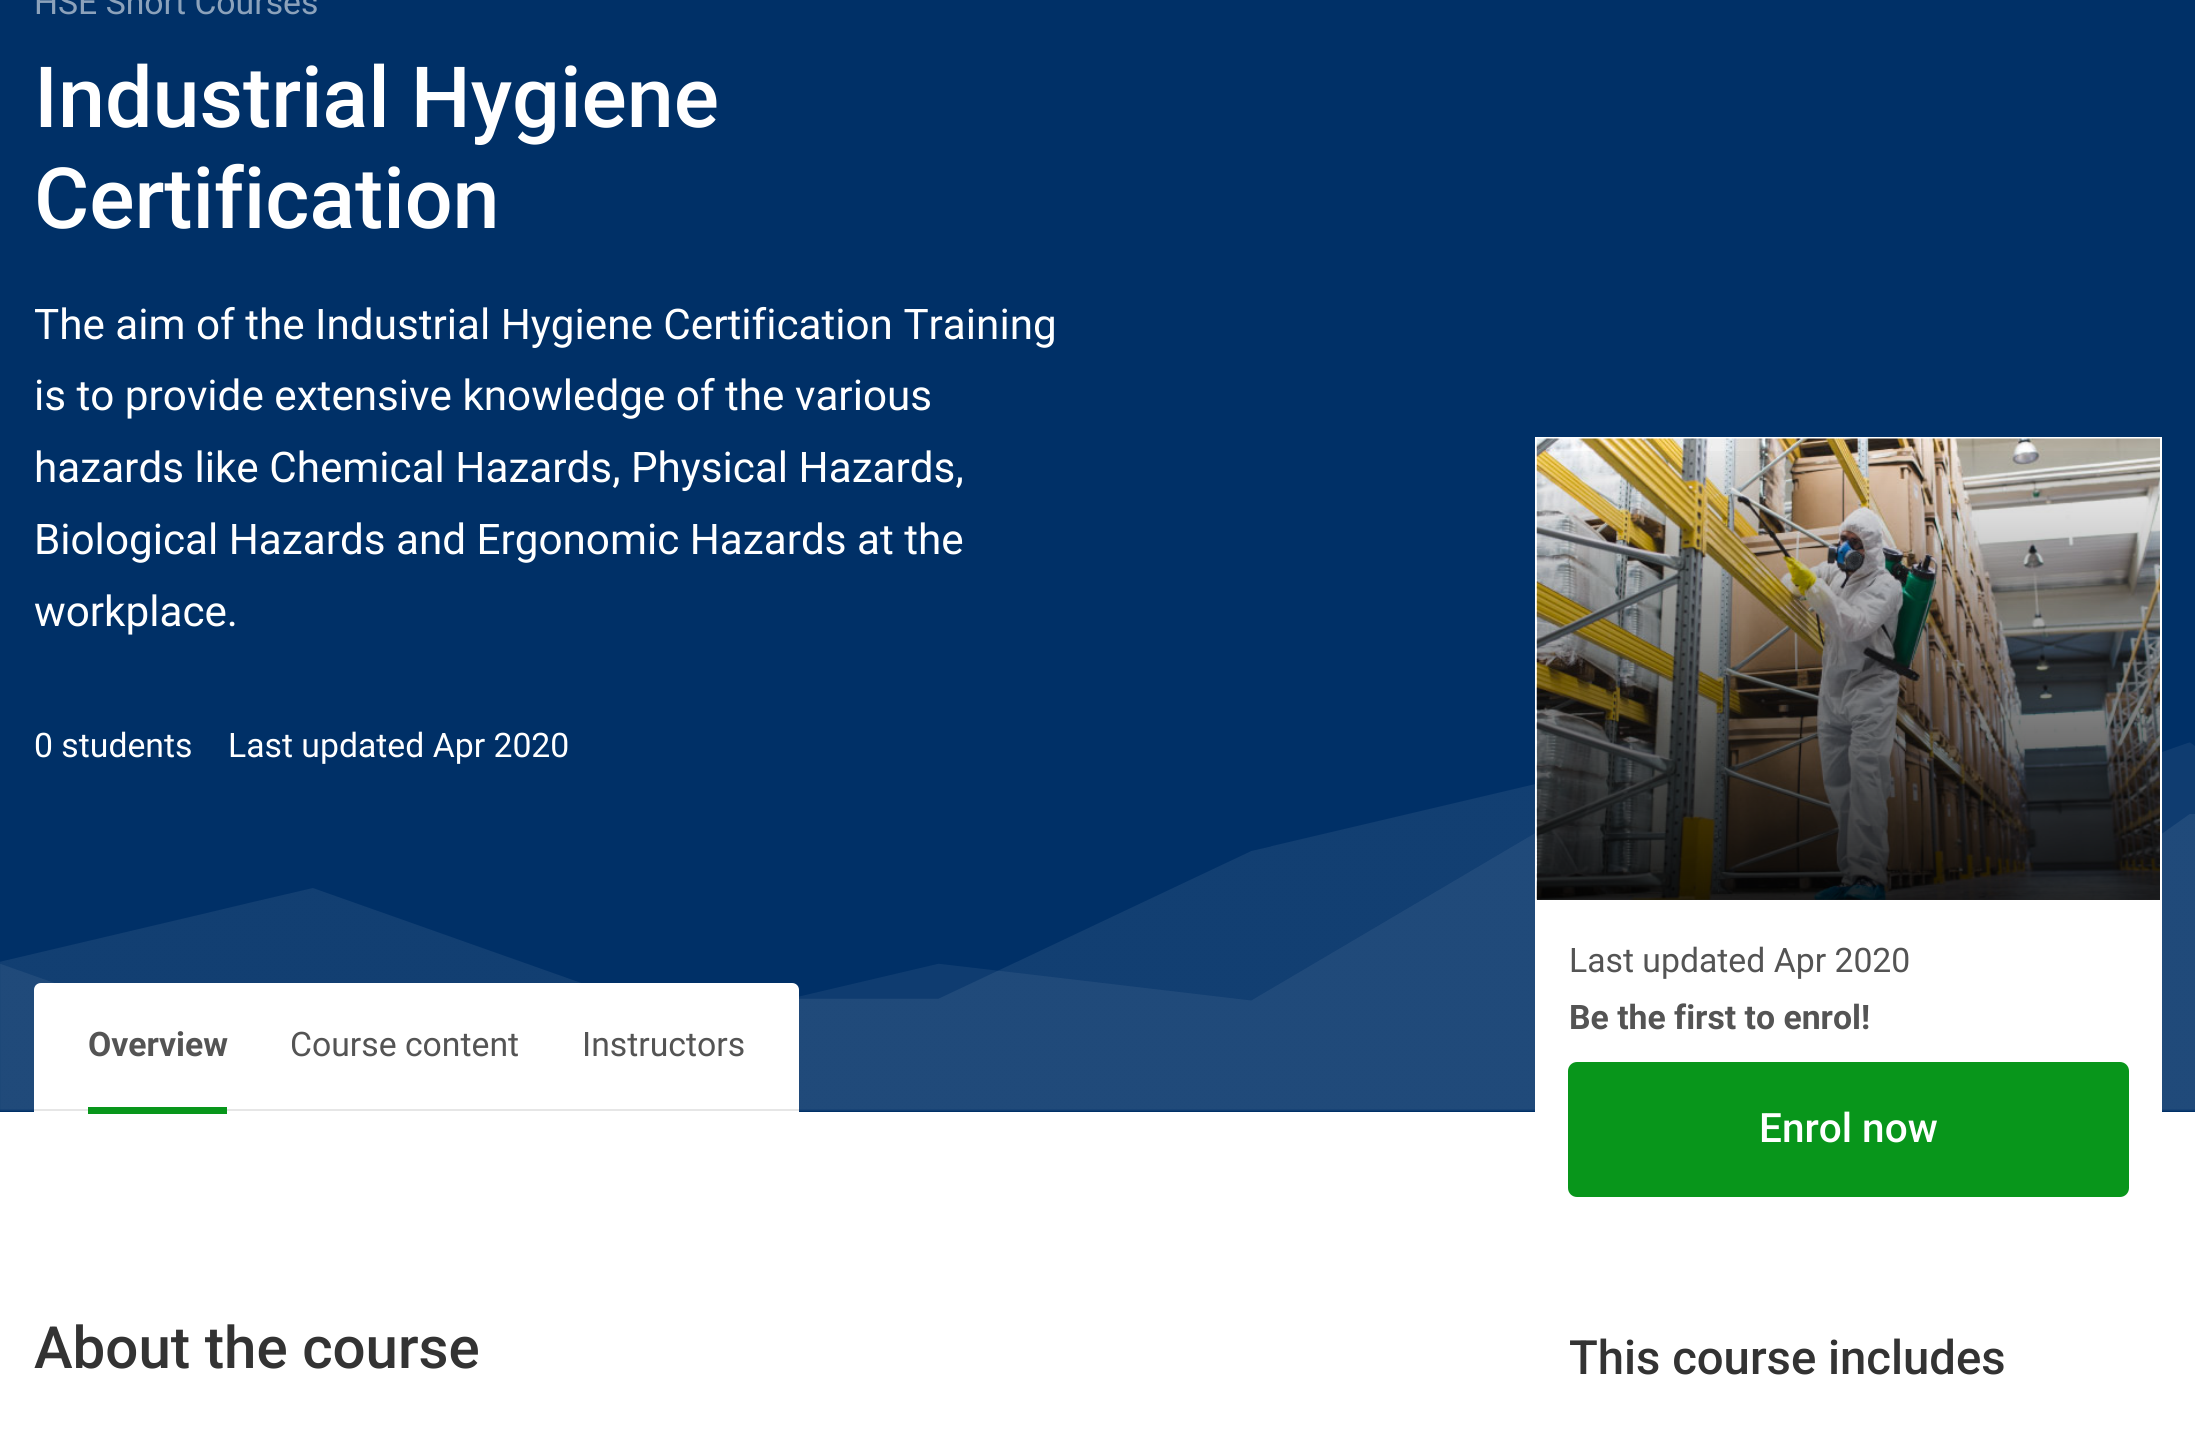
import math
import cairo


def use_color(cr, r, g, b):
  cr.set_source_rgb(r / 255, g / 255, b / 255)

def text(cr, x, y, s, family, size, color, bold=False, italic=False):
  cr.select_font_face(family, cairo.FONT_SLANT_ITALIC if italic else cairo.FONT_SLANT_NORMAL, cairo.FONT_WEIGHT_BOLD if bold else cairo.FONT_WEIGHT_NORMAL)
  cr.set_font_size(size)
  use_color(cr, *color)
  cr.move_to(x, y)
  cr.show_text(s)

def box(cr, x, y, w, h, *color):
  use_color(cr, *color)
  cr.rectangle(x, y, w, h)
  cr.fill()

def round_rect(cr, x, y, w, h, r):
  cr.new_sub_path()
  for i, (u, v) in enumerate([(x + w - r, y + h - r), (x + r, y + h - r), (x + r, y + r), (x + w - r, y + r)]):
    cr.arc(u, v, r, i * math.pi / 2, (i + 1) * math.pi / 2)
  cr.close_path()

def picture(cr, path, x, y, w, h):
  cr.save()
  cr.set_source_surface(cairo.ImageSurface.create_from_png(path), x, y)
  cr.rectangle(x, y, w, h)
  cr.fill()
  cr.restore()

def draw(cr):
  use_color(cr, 255, 255, 255)
  cr.paint()
  box(cr, 0, 0, 2195, 1112, 0, 48, 103)
  picture(cr, "img_01.png", 0, 742, 2195, 369)
  use_color(cr, 255, 255, 255)
  cr.new_path()
  cr.move_to(41, 983)
  cr.line_to(792, 983)
  cr.curve_to(796, 983, 799, 986, 799, 990)
  cr.line_to(799, 1112)
  cr.line_to(34, 1112)
  cr.line_to(34, 990)
  cr.curve_to(34, 986, 37, 983, 41, 983)
  cr.close_path()
  cr.fill()
  box(cr, 34, 1109, 765, 2, 230, 230, 230)
  box(cr, 88, 1107, 139, 7, 8, 150, 27)
  box(cr, 1535, 437, 627, 675, 255, 255, 255)
  picture(cr, "img_02.png", 1536, 438, 624, 462)
  gradient = cairo.LinearGradient(1848, 439, 1848, 900)
  gradient.add_color_stop_rgba(0, 0, 0, 0, 0)
  gradient.add_color_stop_rgba(1, 0, 0, 0, 0.85)
  cr.set_source(gradient)
  cr.rectangle(1537, 451, 623, 449)
  cr.fill()
  use_color(cr, 8, 150, 27)
  round_rect(cr, 1570.5, 1064.5, 556, 130, 6.5)
  cr.fill_preserve()
  cr.set_line_width(5)
  cr.stroke()
  text(cr, 34, 14, "HSE Short Courses", "Roboto", 33.75, (140, 162, 187))
  text(cr, 34, 127, "Industrial Hygiene", "Roboto Medium", 84.5, (255, 255, 255))
  text(cr, 34, 228, "Certification", "Roboto Medium", 84.5, (255, 255, 255))
  text(cr, 34, 339, "The aim of the Industrial Hygiene Certification Training", "Roboto", 42.2, (255, 255, 255))
  text(cr, 34, 410, "is to provide extensive knowledge of the various", "Roboto", 42.2, (255, 255, 255))
  text(cr, 34, 482, "hazards like Chemical Hazards, Physical Hazards,", "Roboto", 42.2, (255, 255, 255))
  text(cr, 34, 554, "Biological Hazards and Ergonomic Hazards at the", "Roboto", 42.2, (255, 255, 255))
  text(cr, 34, 626, "workplace.", "Roboto", 42.2, (255, 255, 255))
  text(cr, 34, 757, "0 students", "Roboto", 33.75, (255, 255, 255))
  text(cr, 228, 757, "Last updated Apr 2020", "Roboto", 33.75, (255, 255, 255))
  text(cr, 88, 1056, "Overview", "Roboto", 33.75, (84, 84, 84), bold=True)
  text(cr, 290, 1056, "Course content", "Roboto", 33.75, (84, 84, 84))
  text(cr, 582, 1056, "Instructors", "Roboto", 33.75, (84, 84, 84))
  text(cr, 34, 1368, "About the course", "Roboto Medium", 58.25, (51, 51, 51))
  text(cr, 1569, 972, "Last updated Apr 2020", "Roboto", 33.75, (84, 84, 84))
  text(cr, 1569, 1029, "Be the first to enrol!", "Roboto", 33.75, (84, 84, 84), bold=True)
  text(cr, 1759, 1142, "Enrol now", "Roboto Medium", 40.5, (255, 255, 255))
  text(cr, 1569, 1374, "This course includes", "Roboto Medium", 47.25, (51, 51, 51))


surface = cairo.ImageSurface(cairo.FORMAT_RGB24, 2195, 1435)
cr = cairo.Context(surface)
options = cairo.FontOptions()
options.set_hint_metrics(cairo.HINT_METRICS_OFF)
options.set_hint_style(cairo.HINT_STYLE_NONE)
cr.set_font_options(options)
cr.set_miter_limit(4)
draw(cr)
surface.write_to_png("out.png")
